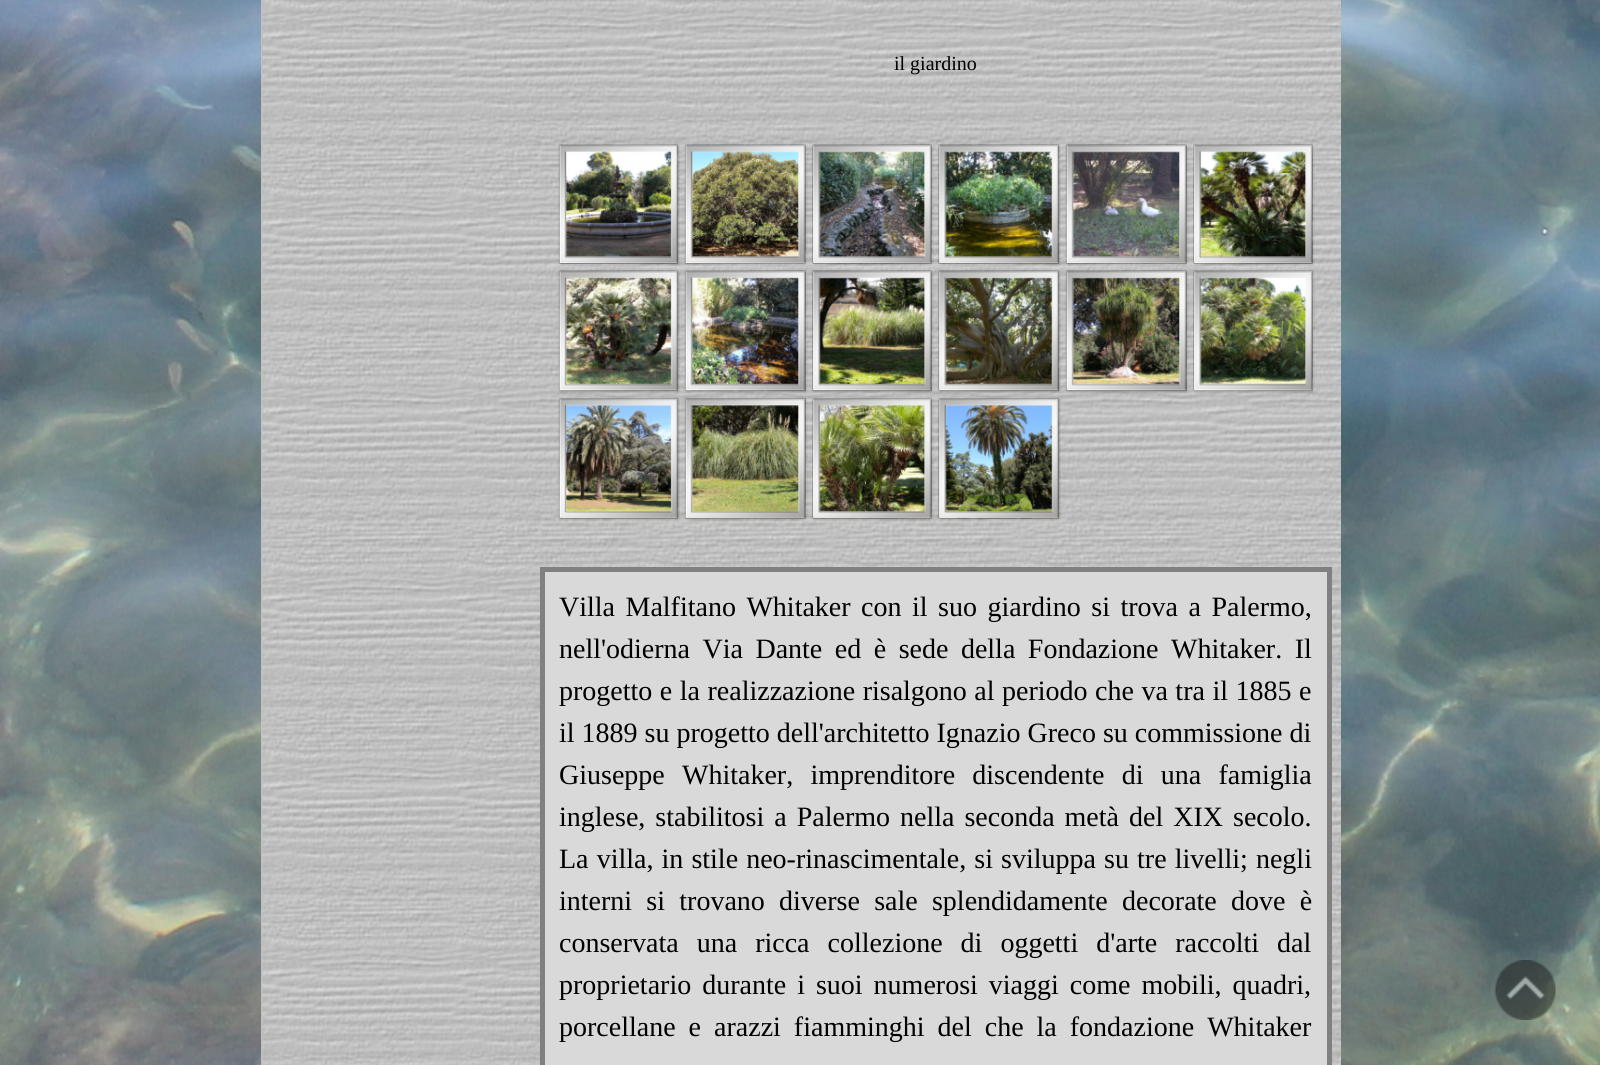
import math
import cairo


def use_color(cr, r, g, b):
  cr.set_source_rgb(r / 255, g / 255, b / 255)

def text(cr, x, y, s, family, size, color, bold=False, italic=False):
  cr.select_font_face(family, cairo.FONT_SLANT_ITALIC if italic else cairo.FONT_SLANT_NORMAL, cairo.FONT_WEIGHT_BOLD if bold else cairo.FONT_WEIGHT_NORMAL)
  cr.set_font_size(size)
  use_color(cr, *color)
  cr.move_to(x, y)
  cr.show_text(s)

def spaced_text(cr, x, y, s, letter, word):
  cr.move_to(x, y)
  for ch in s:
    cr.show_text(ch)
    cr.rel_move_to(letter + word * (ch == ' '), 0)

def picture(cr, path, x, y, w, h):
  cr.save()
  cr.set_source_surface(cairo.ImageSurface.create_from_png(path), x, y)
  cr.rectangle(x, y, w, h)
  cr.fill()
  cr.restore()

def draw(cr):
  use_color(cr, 255, 255, 255)
  cr.paint()
  picture(cr, "img_01.png", 0, 0, 1600, 1065)
  picture(cr, "img_02.png", 261, 0, 1080, 1065)
  picture(cr, "img_03.png", 558, 144, 122, 122)
  picture(cr, "img_04.png", 684, 144, 124, 122)
  picture(cr, "img_05.png", 812, 144, 122, 122)
  picture(cr, "img_06.png", 938, 144, 123, 122)
  picture(cr, "img_07.png", 1065, 144, 124, 122)
  picture(cr, "img_08.png", 1193, 144, 122, 122)
  picture(cr, "img_09.png", 558, 270, 122, 123)
  picture(cr, "img_10.png", 684, 270, 124, 123)
  picture(cr, "img_11.png", 812, 270, 122, 123)
  picture(cr, "img_12.png", 938, 270, 123, 123)
  picture(cr, "img_13.png", 1065, 270, 124, 123)
  picture(cr, "img_14.png", 1193, 270, 122, 123)
  picture(cr, "img_15.png", 558, 397, 122, 124)
  picture(cr, "img_16.png", 684, 397, 124, 124)
  picture(cr, "img_17.png", 812, 397, 122, 124)
  picture(cr, "img_18.png", 938, 397, 123, 124)
  use_color(cr, 217, 217, 217)
  cr.rectangle(542.5, 569.5, 787, 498)
  cr.fill_preserve()
  use_color(cr, 128, 128, 128)
  cr.set_line_width(5)
  cr.stroke()
  picture(cr, "img_19.png", 1495, 960, 61, 60)
  text(cr, 894, 70, "il giardino", "Liberation Serif", 20, (0, 0, 0))
  cr.set_font_size(28)
  spaced_text(cr, 559, 616, "Villa Malfitano Whitaker con il suo giardino si trova a Palermo,", 0, 3.5)
  spaced_text(cr, 559, 658, "nell'odierna Via Dante ed è sede della Fondazione Whitaker. Il", 0, 5.5)
  spaced_text(cr, 559, 700, "progetto e la realizzazione risalgono al periodo che va tra il 1885 e", 0, 0.5)
  text(cr, 559, 742, "il 1889 su progetto dell'architetto Ignazio Greco su commissione di", "Liberation Serif", 28, (0, 0, 0))
  spaced_text(cr, 559, 784, "Giuseppe Whitaker, imprenditore discendente di una famiglia", 0, 10.25)
  spaced_text(cr, 559, 826, "inglese, stabilitosi a Palermo nella seconda metà del XIX secolo.", 0, 3)
  spaced_text(cr, 559, 868, "La villa, in stile neo-rinascimentale, si sviluppa su tre livelli; negli", 0, 1.1)
  spaced_text(cr, 559, 910, "interni si trovano diverse sale splendidamente decorate dove è", 0, 7.25)
  spaced_text(cr, 559, 952, "conservata una ricca collezione di oggetti d'arte raccolti dal", 0, 11)
  spaced_text(cr, 559, 994, "proprietario durante i suoi numerosi viaggi come mobili, quadri,", 0, 4)
  spaced_text(cr, 559, 1036, "porcellane e arazzi fiamminghi del che la fondazione Whitaker", 0, 6)


surface = cairo.ImageSurface(cairo.FORMAT_RGB24, 1600, 1065)
cr = cairo.Context(surface)
options = cairo.FontOptions()
options.set_hint_metrics(cairo.HINT_METRICS_OFF)
options.set_hint_style(cairo.HINT_STYLE_NONE)
cr.set_font_options(options)
cr.set_miter_limit(4)
draw(cr)
surface.write_to_png("out.png")
